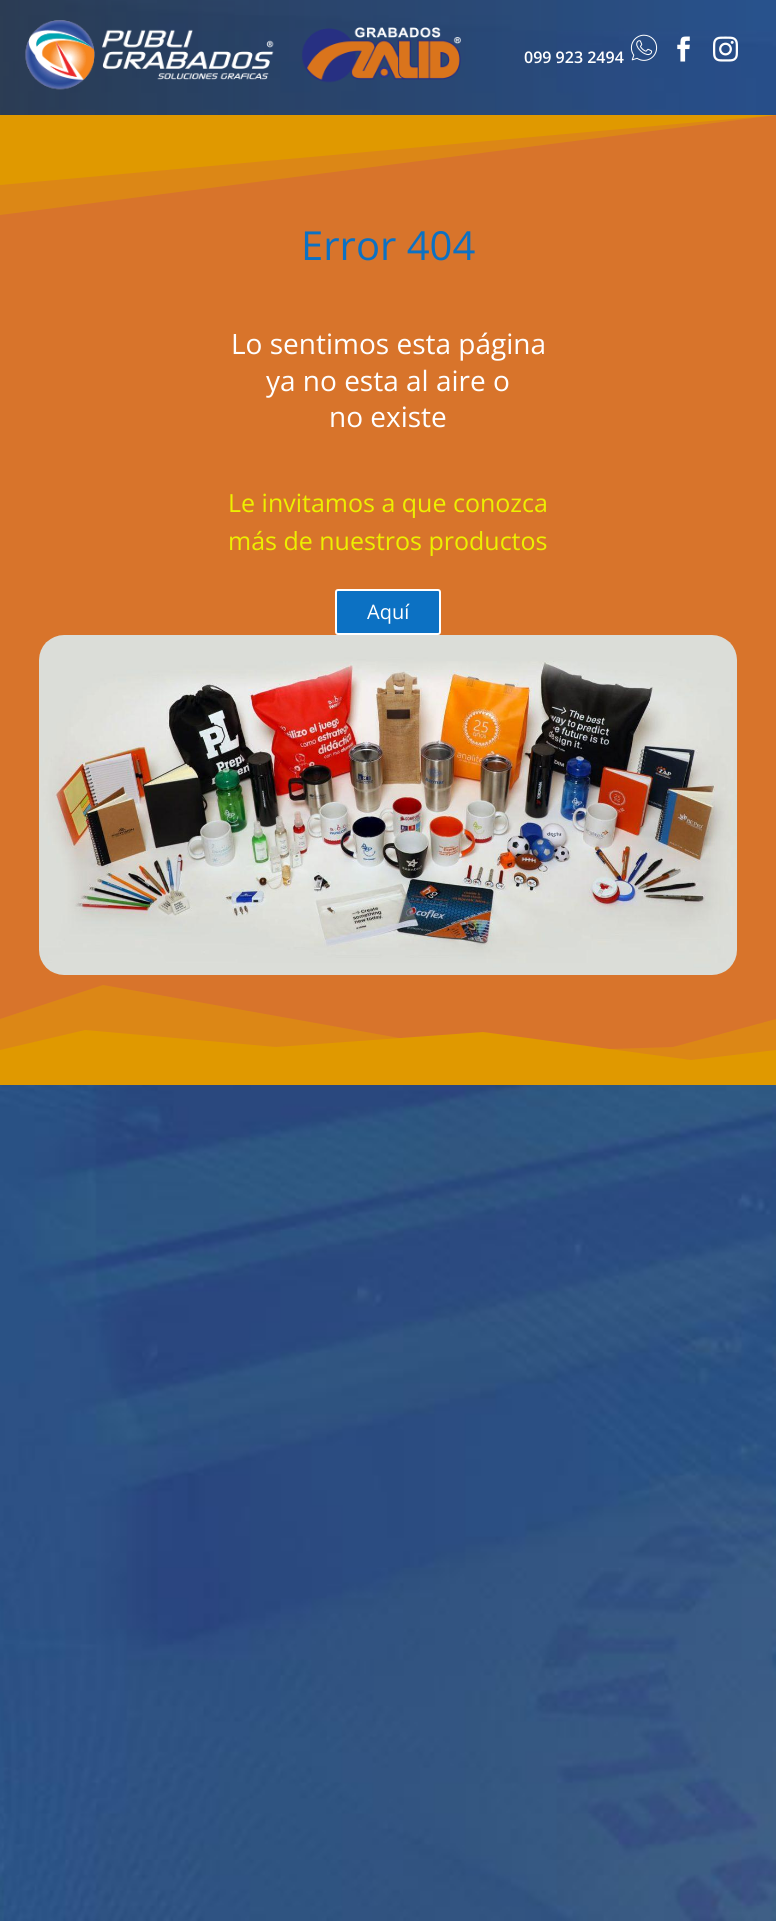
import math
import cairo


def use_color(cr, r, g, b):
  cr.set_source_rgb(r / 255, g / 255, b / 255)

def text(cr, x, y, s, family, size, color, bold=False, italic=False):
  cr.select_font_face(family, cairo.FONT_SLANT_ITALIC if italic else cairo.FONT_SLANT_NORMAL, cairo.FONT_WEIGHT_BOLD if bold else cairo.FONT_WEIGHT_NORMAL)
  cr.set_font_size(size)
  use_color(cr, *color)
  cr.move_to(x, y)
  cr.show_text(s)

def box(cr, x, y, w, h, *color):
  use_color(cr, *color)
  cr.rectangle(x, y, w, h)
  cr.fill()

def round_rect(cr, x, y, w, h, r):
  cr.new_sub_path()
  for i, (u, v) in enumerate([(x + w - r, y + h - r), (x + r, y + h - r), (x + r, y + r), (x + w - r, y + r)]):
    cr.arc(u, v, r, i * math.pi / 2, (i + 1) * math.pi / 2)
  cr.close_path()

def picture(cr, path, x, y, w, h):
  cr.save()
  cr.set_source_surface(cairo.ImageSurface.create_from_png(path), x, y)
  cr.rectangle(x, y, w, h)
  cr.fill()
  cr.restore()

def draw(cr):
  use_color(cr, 255, 255, 255)
  cr.paint()
  picture(cr, "img_01.png", 0, 0, 776, 1921)
  picture(cr, "img_02.png", 25, 20, 436, 70)
  picture(cr, "img_03.png", 630, 34, 28, 27)
  picture(cr, "img_04.png", 677, 36, 13, 26)
  picture(cr, "img_05.png", 713, 36, 25, 26)
  box(cr, 0, 115, 776, 935, 216, 116, 43)
  use_color(cr, 220, 135, 22)
  cr.new_path()
  cr.move_to(0, 215)
  cr.line_to(0, 115)
  cr.line_to(776, 115)
  cr.close_path()
  cr.fill()
  use_color(cr, 224, 153, 0)
  cr.new_path()
  cr.move_to(0, 185)
  cr.line_to(0, 115)
  cr.line_to(776, 115)
  cr.close_path()
  cr.fill()
  use_color(cr, 12, 113, 195)
  round_rect(cr, 336, 590, 104, 44, 2)
  cr.fill_preserve()
  use_color(cr, 255, 255, 255)
  cr.stroke()
  picture(cr, "img_06.png", 39, 635, 698, 340)
  use_color(cr, 220, 135, 22)
  cr.new_path()
  cr.move_to(0, 1019)
  cr.line_to(103, 985)
  cr.line_to(483, 1053)
  cr.line_to(673, 1047)
  cr.line_to(776, 1019)
  cr.line_to(776, 1085)
  cr.line_to(0, 1085)
  cr.close_path()
  cr.fill()
  use_color(cr, 224, 153, 0)
  cr.new_path()
  cr.move_to(0, 1050)
  cr.line_to(85, 1030)
  cr.line_to(276, 1047)
  cr.line_to(483, 1032)
  cr.line_to(691, 1060)
  cr.line_to(776, 1050)
  cr.line_to(776, 1085)
  cr.line_to(0, 1085)
  cr.close_path()
  cr.fill()
  text(cr, 524, 63, "099 923 2494", "Open Sans SemiBold", 16, (255, 255, 255))
  text(cr, 301, 260, "Error 404", "Open Sans", 40, (12, 113, 195))
  text(cr, 231, 354, "Lo sentimos esta página", "Open Sans", 28, (255, 255, 255))
  text(cr, 266, 391, "ya no esta al aire o", "Open Sans", 28, (255, 255, 255))
  text(cr, 329, 427, "no existe", "Open Sans", 28, (255, 255, 255))
  text(cr, 228, 512, "Le invitamos a que conozca", "Open Sans", 25, (237, 240, 0))
  text(cr, 228, 550, "más de nuestros productos", "Open Sans", 25, (237, 240, 0))
  text(cr, 367, 619, "Aquí", "Open Sans", 20, (255, 255, 255))


surface = cairo.ImageSurface(cairo.FORMAT_RGB24, 776, 1921)
cr = cairo.Context(surface)
options = cairo.FontOptions()
options.set_hint_metrics(cairo.HINT_METRICS_OFF)
options.set_hint_style(cairo.HINT_STYLE_NONE)
cr.set_font_options(options)
cr.set_miter_limit(4)
draw(cr)
surface.write_to_png("out.png")
